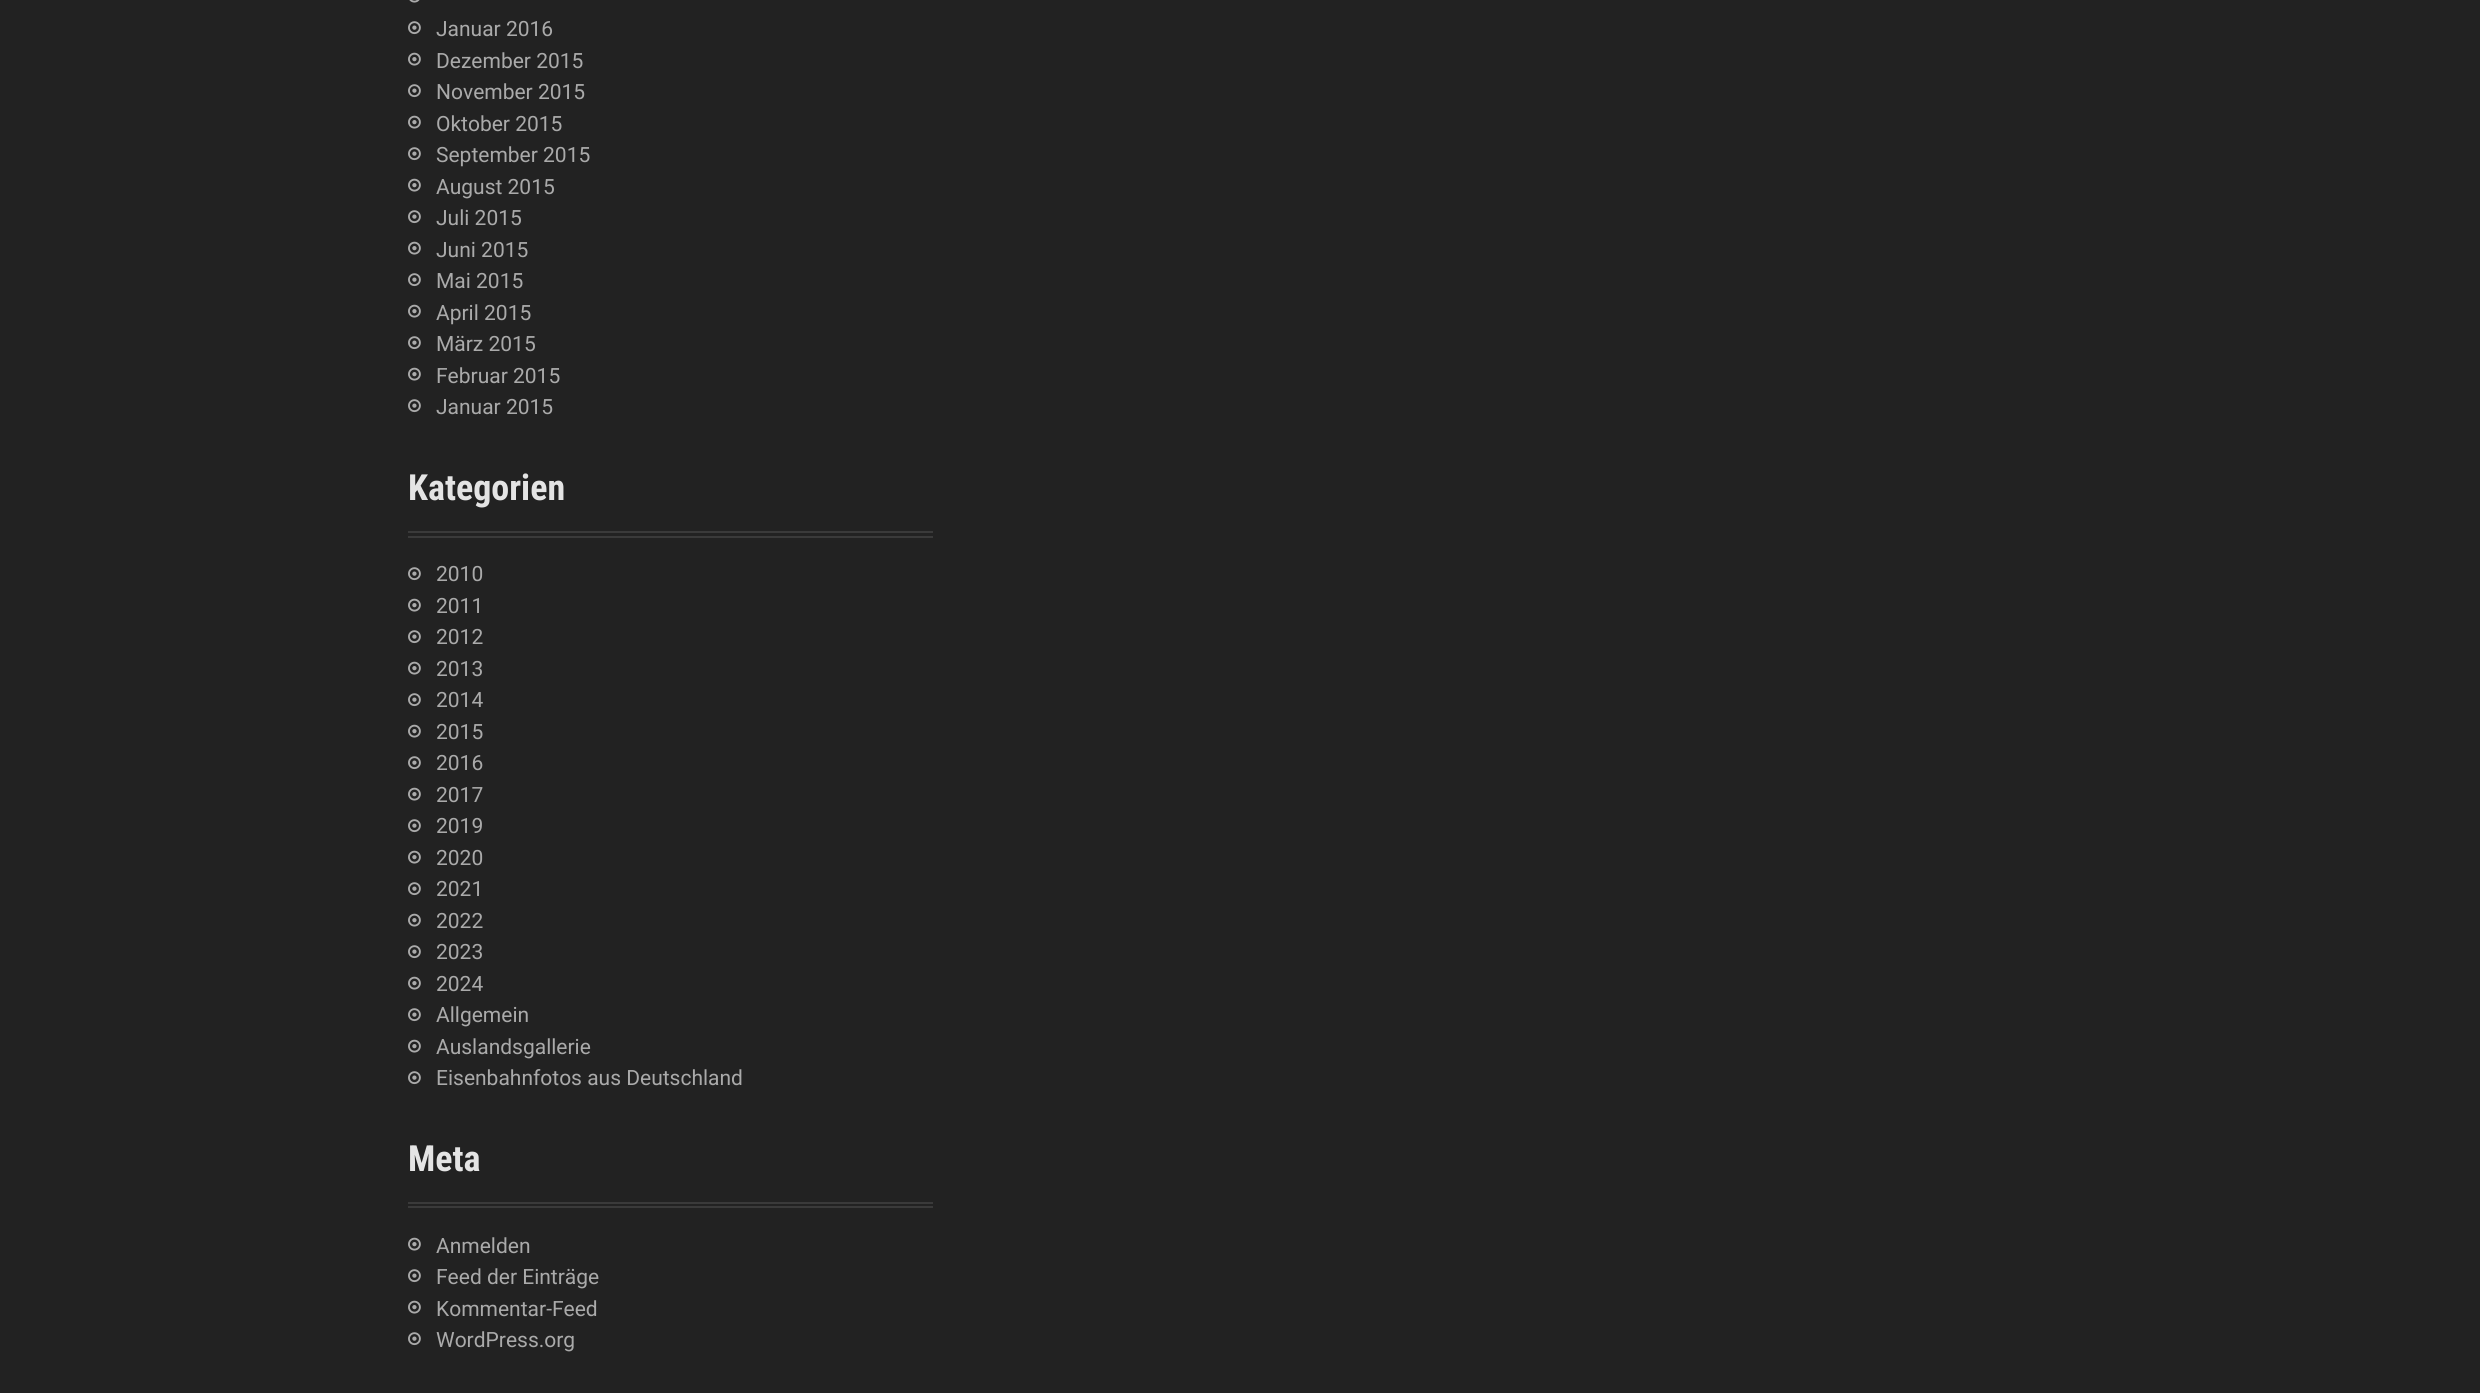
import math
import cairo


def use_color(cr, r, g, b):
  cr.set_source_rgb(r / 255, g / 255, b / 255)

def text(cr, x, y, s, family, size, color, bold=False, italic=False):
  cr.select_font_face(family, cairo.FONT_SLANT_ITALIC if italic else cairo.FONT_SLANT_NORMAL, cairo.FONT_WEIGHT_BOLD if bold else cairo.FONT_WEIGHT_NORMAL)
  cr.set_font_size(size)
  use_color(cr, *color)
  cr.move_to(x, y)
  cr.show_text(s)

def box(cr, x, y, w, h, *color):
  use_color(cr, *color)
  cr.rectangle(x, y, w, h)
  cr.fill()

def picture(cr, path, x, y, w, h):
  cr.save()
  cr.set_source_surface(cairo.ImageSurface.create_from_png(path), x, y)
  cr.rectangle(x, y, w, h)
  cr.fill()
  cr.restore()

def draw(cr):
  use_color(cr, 34, 34, 34)
  cr.paint()
  picture(cr, "img_01.png", 409, 0, 11, 3)
  picture(cr, "img_02.png", 408, 21, 13, 14)
  picture(cr, "img_03.png", 408, 52, 13, 14)
  picture(cr, "img_02.png", 408, 84, 13, 14)
  picture(cr, "img_03.png", 408, 115, 13, 14)
  picture(cr, "img_02.png", 408, 147, 13, 14)
  picture(cr, "img_03.png", 408, 178, 13, 14)
  picture(cr, "img_02.png", 408, 210, 13, 14)
  picture(cr, "img_03.png", 408, 241, 13, 14)
  picture(cr, "img_02.png", 408, 273, 13, 14)
  picture(cr, "img_03.png", 408, 304, 13, 14)
  picture(cr, "img_02.png", 408, 336, 13, 14)
  picture(cr, "img_03.png", 408, 367, 13, 14)
  picture(cr, "img_02.png", 408, 399, 13, 14)
  box(cr, 408, 531, 525, 2, 58, 58, 58)
  box(cr, 408, 536, 525, 2, 58, 58, 58)
  picture(cr, "img_02.png", 408, 567, 13, 14)
  picture(cr, "img_03.png", 408, 598, 13, 14)
  picture(cr, "img_02.png", 408, 630, 13, 14)
  picture(cr, "img_03.png", 408, 661, 13, 14)
  picture(cr, "img_02.png", 408, 693, 13, 14)
  picture(cr, "img_03.png", 408, 724, 13, 14)
  picture(cr, "img_02.png", 408, 756, 13, 14)
  picture(cr, "img_03.png", 408, 787, 13, 14)
  picture(cr, "img_02.png", 408, 819, 13, 14)
  picture(cr, "img_03.png", 408, 850, 13, 14)
  picture(cr, "img_02.png", 408, 882, 13, 14)
  picture(cr, "img_03.png", 408, 913, 13, 14)
  picture(cr, "img_02.png", 408, 945, 13, 14)
  picture(cr, "img_03.png", 408, 976, 13, 14)
  picture(cr, "img_02.png", 408, 1008, 13, 14)
  picture(cr, "img_03.png", 408, 1039, 13, 14)
  picture(cr, "img_02.png", 408, 1071, 13, 14)
  box(cr, 408, 1202, 525, 2, 58, 58, 58)
  box(cr, 408, 1206, 525, 2, 58, 58, 58)
  picture(cr, "img_03.png", 408, 1237, 13, 14)
  picture(cr, "img_02.png", 408, 1269, 13, 14)
  picture(cr, "img_03.png", 408, 1300, 13, 14)
  picture(cr, "img_02.png", 408, 1332, 13, 14)
  text(cr, 436, 36, "Januar 2016", "Roboto", 21, (170, 170, 170))
  text(cr, 436, 68, "Dezember 2015", "Roboto", 21, (170, 170, 170))
  text(cr, 436, 99, "November 2015", "Roboto", 21, (170, 170, 170))
  text(cr, 436, 131, "Oktober 2015", "Roboto", 21, (170, 170, 170))
  text(cr, 436, 162, "September 2015", "Roboto", 21, (170, 170, 170))
  text(cr, 436, 194, "August 2015", "Roboto", 21, (170, 170, 170))
  text(cr, 436, 225, "Juli 2015", "Roboto", 21, (170, 170, 170))
  text(cr, 436, 257, "Juni 2015", "Roboto", 21, (170, 170, 170))
  text(cr, 436, 288, "Mai 2015", "Roboto", 21, (170, 170, 170))
  text(cr, 436, 320, "April 2015", "Roboto", 21, (170, 170, 170))
  text(cr, 436, 351, "März 2015", "Roboto", 21, (170, 170, 170))
  text(cr, 436, 383, "Februar 2015", "Roboto", 21, (170, 170, 170))
  text(cr, 436, 414, "Januar 2015", "Roboto", 21, (170, 170, 170))
  text(cr, 408, 500, "Kategorien", "Roboto Condensed", 36, (228, 228, 228), bold=True)
  text(cr, 436, 581, "2010", "Roboto", 21, (170, 170, 170))
  text(cr, 436, 613, "2011", "Roboto", 21, (170, 170, 170))
  text(cr, 436, 644, "2012", "Roboto", 21, (170, 170, 170))
  text(cr, 436, 676, "2013", "Roboto", 21, (170, 170, 170))
  text(cr, 436, 707, "2014", "Roboto", 21, (170, 170, 170))
  text(cr, 436, 739, "2015", "Roboto", 21, (170, 170, 170))
  text(cr, 436, 770, "2016", "Roboto", 21, (170, 170, 170))
  text(cr, 436, 802, "2017", "Roboto", 21, (170, 170, 170))
  text(cr, 436, 833, "2019", "Roboto", 21, (170, 170, 170))
  text(cr, 436, 865, "2020", "Roboto", 21, (170, 170, 170))
  text(cr, 436, 896, "2021", "Roboto", 21, (170, 170, 170))
  text(cr, 436, 928, "2022", "Roboto", 21, (170, 170, 170))
  text(cr, 436, 959, "2023", "Roboto", 21, (170, 170, 170))
  text(cr, 436, 991, "2024", "Roboto", 21, (170, 170, 170))
  text(cr, 436, 1022, "Allgemein", "Roboto", 21, (170, 170, 170))
  text(cr, 436, 1054, "Auslandsgallerie", "Roboto", 21, (170, 170, 170))
  text(cr, 436, 1085, "Eisenbahnfotos aus Deutschland", "Roboto", 21, (170, 170, 170))
  text(cr, 408, 1171, "Meta", "Roboto Condensed", 36, (228, 228, 228), bold=True)
  text(cr, 436, 1253, "Anmelden", "Roboto", 21, (170, 170, 170))
  text(cr, 436, 1284, "Feed der Einträge", "Roboto", 21, (170, 170, 170))
  text(cr, 436, 1316, "Kommentar-Feed", "Roboto", 21, (170, 170, 170))
  text(cr, 436, 1347, "WordPress.org", "Roboto", 21, (170, 170, 170))


surface = cairo.ImageSurface(cairo.FORMAT_RGB24, 2480, 1393)
cr = cairo.Context(surface)
options = cairo.FontOptions()
options.set_hint_metrics(cairo.HINT_METRICS_OFF)
options.set_hint_style(cairo.HINT_STYLE_NONE)
cr.set_font_options(options)
cr.set_miter_limit(4)
draw(cr)
surface.write_to_png("out.png")
